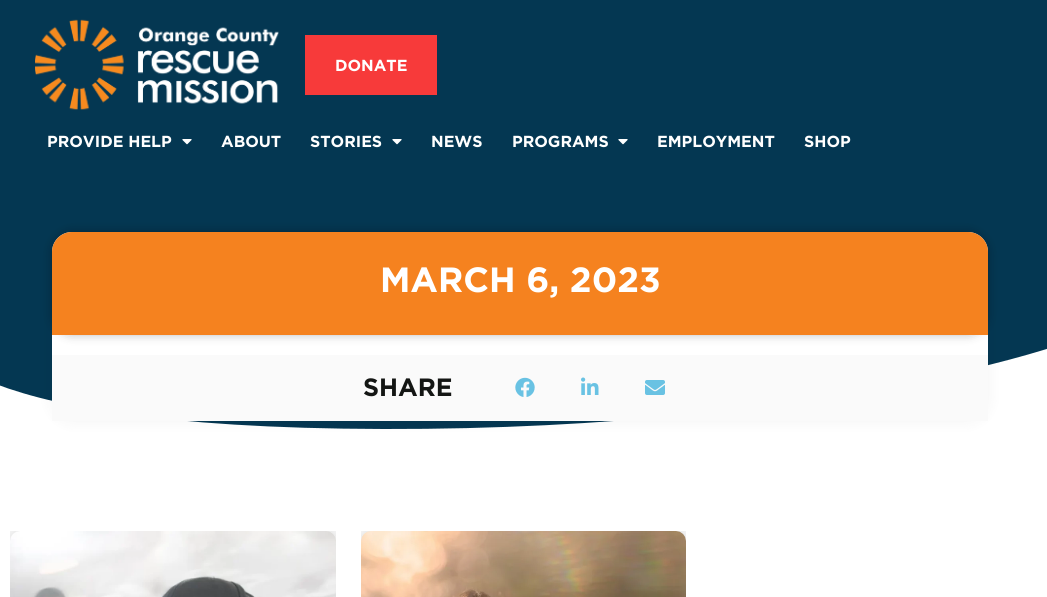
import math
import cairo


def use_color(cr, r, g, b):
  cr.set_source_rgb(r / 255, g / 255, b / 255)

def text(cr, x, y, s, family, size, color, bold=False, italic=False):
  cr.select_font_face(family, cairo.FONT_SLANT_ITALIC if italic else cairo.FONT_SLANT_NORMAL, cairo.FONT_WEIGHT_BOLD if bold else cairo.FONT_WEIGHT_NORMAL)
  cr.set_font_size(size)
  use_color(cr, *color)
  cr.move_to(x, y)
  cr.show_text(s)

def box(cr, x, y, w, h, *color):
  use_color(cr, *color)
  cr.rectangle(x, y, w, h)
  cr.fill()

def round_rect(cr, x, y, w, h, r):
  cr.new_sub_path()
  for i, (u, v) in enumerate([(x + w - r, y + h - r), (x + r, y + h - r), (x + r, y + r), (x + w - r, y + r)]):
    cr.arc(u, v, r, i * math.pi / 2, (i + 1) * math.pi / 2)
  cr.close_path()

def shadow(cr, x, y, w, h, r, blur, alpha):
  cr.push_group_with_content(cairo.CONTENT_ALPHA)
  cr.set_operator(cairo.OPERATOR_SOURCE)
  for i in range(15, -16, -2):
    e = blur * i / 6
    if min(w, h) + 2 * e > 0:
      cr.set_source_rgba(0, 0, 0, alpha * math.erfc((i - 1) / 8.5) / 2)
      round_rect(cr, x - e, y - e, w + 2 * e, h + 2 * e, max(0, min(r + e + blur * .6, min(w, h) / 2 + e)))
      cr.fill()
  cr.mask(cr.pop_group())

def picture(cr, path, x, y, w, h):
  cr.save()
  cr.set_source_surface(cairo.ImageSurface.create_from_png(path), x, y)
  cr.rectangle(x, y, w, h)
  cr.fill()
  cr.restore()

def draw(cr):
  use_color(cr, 255, 255, 255)
  cr.paint()
  box(cr, 0, 0, 1047, 429, 4, 55, 82)
  picture(cr, "img_01.png", 35, 19, 244, 91)
  box(cr, 305, 35, 132, 60, 247, 58, 58)
  picture(cr, "img_02.png", 182, 139, 10, 6)
  picture(cr, "img_02.png", 392, 139, 10, 6)
  picture(cr, "img_02.png", 618, 139, 10, 6)
  use_color(cr, 255, 255, 255)
  cr.new_path()
  cr.move_to(384, 429)
  cr.curve_to(836, 430, 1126, 335, 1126, 312)
  cr.line_to(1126, 433)
  cr.line_to(-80, 433)
  cr.line_to(-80, 312)
  cr.curve_to(-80, 335, -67, 428, 384, 429)
  cr.close_path()
  cr.fill()
  use_color(cr, 0, 0, 0)
  shadow(cr, 52, 232, 936, 189, 20, 7.5, 0.05)
  use_color(cr, 255, 255, 255)
  round_rect(cr, 52, 232, 936, 189, 20)
  cr.fill()
  use_color(cr, 0, 0, 0)
  shadow(cr, 52, 232, 936, 103, 20, 5, 0.25)
  use_color(cr, 245, 130, 31)
  cr.new_path()
  cr.move_to(72, 232)
  cr.line_to(968, 232)
  cr.curve_to(979, 232, 988, 241, 988, 252)
  cr.line_to(988, 335)
  cr.line_to(52, 335)
  cr.line_to(52, 252)
  cr.curve_to(52, 241, 61, 232, 72, 232)
  cr.close_path()
  cr.fill()
  box(cr, 52, 355, 936, 66, 250, 250, 250)
  picture(cr, "img_03.png", 515, 377, 20, 20)
  picture(cr, "img_04.png", 581, 377, 18, 18)
  picture(cr, "img_05.png", 645, 380, 20, 15)
  box(cr, 10, 531, 326, 10, 246, 246, 246)
  cr.save()
  cr.rectangle(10, 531, 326, 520)
  cr.clip()
  use_color(cr, 0, 0, 0)
  shadow(cr, 10, 531, 326, 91, 10, 5, 0.1)
  cr.restore()
  picture(cr, "img_06.png", 10, 531, 326, 66)
  box(cr, 361, 531, 325, 10, 246, 246, 246)
  cr.save()
  cr.rectangle(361, 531, 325, 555)
  cr.clip()
  use_color(cr, 0, 0, 0)
  shadow(cr, 361, 531, 325, 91, 10, 5, 0.1)
  cr.restore()
  picture(cr, "img_07.png", 361, 531, 325, 66)
  text(cr, 335, 71, "DONATE", "Gotham", 16, (255, 255, 255), bold=True)
  text(cr, 47, 147, "PROVIDE HELP", "Gotham", 16, (255, 255, 255), bold=True)
  text(cr, 221, 147, "ABOUT", "Gotham", 16, (255, 255, 255), bold=True)
  text(cr, 310, 147, "STORIES", "Gotham", 16, (255, 255, 255), bold=True)
  text(cr, 431, 147, "NEWS", "Gotham", 16, (255, 255, 255), bold=True)
  text(cr, 512, 147, "PROGRAMS", "Gotham", 16, (255, 255, 255), bold=True)
  text(cr, 657, 147, "EMPLOYMENT", "Gotham", 16, (255, 255, 255), bold=True)
  text(cr, 804, 147, "SHOP", "Gotham", 16, (255, 255, 255), bold=True)
  text(cr, 380, 292, "MARCH 6, 2023", "Gotham", 35, (255, 255, 255), bold=True)
  text(cr, 363, 396, "SHARE", "Gotham", 25, (20, 22, 20), bold=True)


surface = cairo.ImageSurface(cairo.FORMAT_RGB24, 1047, 597)
cr = cairo.Context(surface)
options = cairo.FontOptions()
options.set_hint_metrics(cairo.HINT_METRICS_OFF)
options.set_hint_style(cairo.HINT_STYLE_NONE)
cr.set_font_options(options)
cr.set_miter_limit(4)
draw(cr)
surface.write_to_png("out.png")
